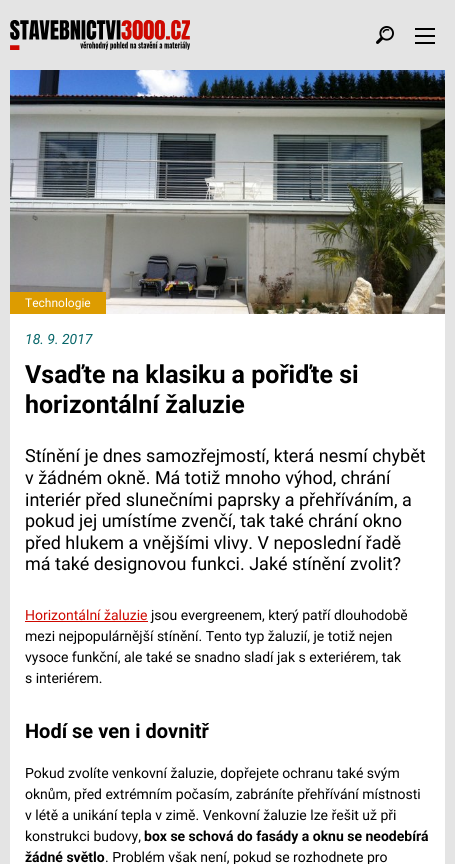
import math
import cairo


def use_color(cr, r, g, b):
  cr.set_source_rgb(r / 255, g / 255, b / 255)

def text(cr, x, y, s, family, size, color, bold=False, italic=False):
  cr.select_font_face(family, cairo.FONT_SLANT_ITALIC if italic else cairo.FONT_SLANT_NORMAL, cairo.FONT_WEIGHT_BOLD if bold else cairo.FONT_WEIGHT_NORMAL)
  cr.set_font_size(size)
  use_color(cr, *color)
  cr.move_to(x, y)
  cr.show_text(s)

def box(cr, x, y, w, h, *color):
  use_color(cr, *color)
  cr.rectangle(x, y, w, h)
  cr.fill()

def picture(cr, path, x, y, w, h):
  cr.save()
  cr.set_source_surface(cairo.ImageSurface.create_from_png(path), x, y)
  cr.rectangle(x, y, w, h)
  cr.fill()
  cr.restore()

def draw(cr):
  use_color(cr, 228, 228, 228)
  cr.paint()
  picture(cr, "img_01.png", 10, 20, 180, 30)
  picture(cr, "img_02.png", 376, 26, 18, 18)
  box(cr, 415, 35, 20, 2, 0, 0, 0)
  box(cr, 415, 28, 20, 2, 0, 0, 0)
  box(cr, 415, 42, 20, 2, 0, 0, 0)
  picture(cr, "img_03.png", 10, 70, 435, 244)
  box(cr, 10, 292, 96, 22, 221, 156, 0)
  box(cr, 10, 314, 435, 550, 255, 255, 255)
  box(cr, 25, 621, 123, 1, 206, 8, 0)
  text(cr, 25, 307, "Technologie", "Roboto", 12, (255, 255, 255))
  text(cr, 25, 344, "18. 9. 2017", "Roboto", 14, (7, 102, 105), italic=True)
  text(cr, 25, 383, "Vsaďte na klasiku a pořiďte si", "Roboto", 25, (0, 0, 0), bold=True)
  text(cr, 25, 413, "horizontální žaluzie", "Roboto", 25, (0, 0, 0), bold=True)
  text(cr, 25, 462, "Stínění je dnes samozřejmostí, která nesmí chybět", "Roboto", 18, (0, 0, 0))
  text(cr, 25, 484, "v žádném okně. Má totiž mnoho výhod, chrání", "Roboto", 18, (0, 0, 0))
  text(cr, 25, 506, "interiér před slunečními paprsky a přehříváním, a", "Roboto", 18, (0, 0, 0))
  text(cr, 25, 527, "pokud jej umístíme zvenčí, tak také chrání okno", "Roboto", 18, (0, 0, 0))
  text(cr, 25, 549, "před hlukem a vnějšími vlivy. V neposlední řadě", "Roboto", 18, (0, 0, 0))
  text(cr, 25, 570, "má také designovou funkci. Jaké stínění zvolit?", "Roboto", 18, (0, 0, 0))
  text(cr, 25, 620, "Horizontální žaluzie", "Roboto", 14, (206, 8, 0))
  text(cr, 151, 620, "jsou evergreenem, který patří dlouhodobě", "Roboto", 14, (0, 0, 0))
  text(cr, 25, 641, "mezi nejpopulárnější stínění. Tento typ žaluzií, je totiž nejen", "Roboto", 14, (0, 0, 0))
  text(cr, 25, 662, "vysoce funkční, ale také se snadno sladí jak s exteriérem, tak", "Roboto", 14, (0, 0, 0))
  text(cr, 25, 683, "s interiérem.", "Roboto", 14, (0, 0, 0))
  text(cr, 25, 738, "Hodí se ven i dovnitř", "Roboto", 20, (0, 0, 0), bold=True)
  text(cr, 25, 778, "Pokud zvolíte venkovní žaluzie, dopřejete ochranu také svým", "Roboto", 14, (0, 0, 0))
  text(cr, 25, 799, "oknům, před extrémním počasím, zabráníte přehřívání místnosti", "Roboto", 14, (0, 0, 0))
  text(cr, 25, 820, "v létě a unikání tepla v zimě. Venkovní žaluzie lze řešit už při", "Roboto", 14, (0, 0, 0))
  text(cr, 25, 841, "konstrukci budovy,", "Roboto", 14, (0, 0, 0))
  text(cr, 144, 841, "box se schová do fasády a oknu se neodebírá", "Roboto", 14, (0, 0, 0), bold=True)
  text(cr, 25, 862, "žádné světlo", "Roboto", 14, (0, 0, 0), bold=True)
  text(cr, 105, 862, ". Problém však není, pokud se rozhodnete pro", "Roboto", 14, (0, 0, 0))


surface = cairo.ImageSurface(cairo.FORMAT_RGB24, 455, 864)
cr = cairo.Context(surface)
options = cairo.FontOptions()
options.set_hint_metrics(cairo.HINT_METRICS_OFF)
options.set_hint_style(cairo.HINT_STYLE_NONE)
cr.set_font_options(options)
cr.set_miter_limit(4)
draw(cr)
surface.write_to_png("out.png")
